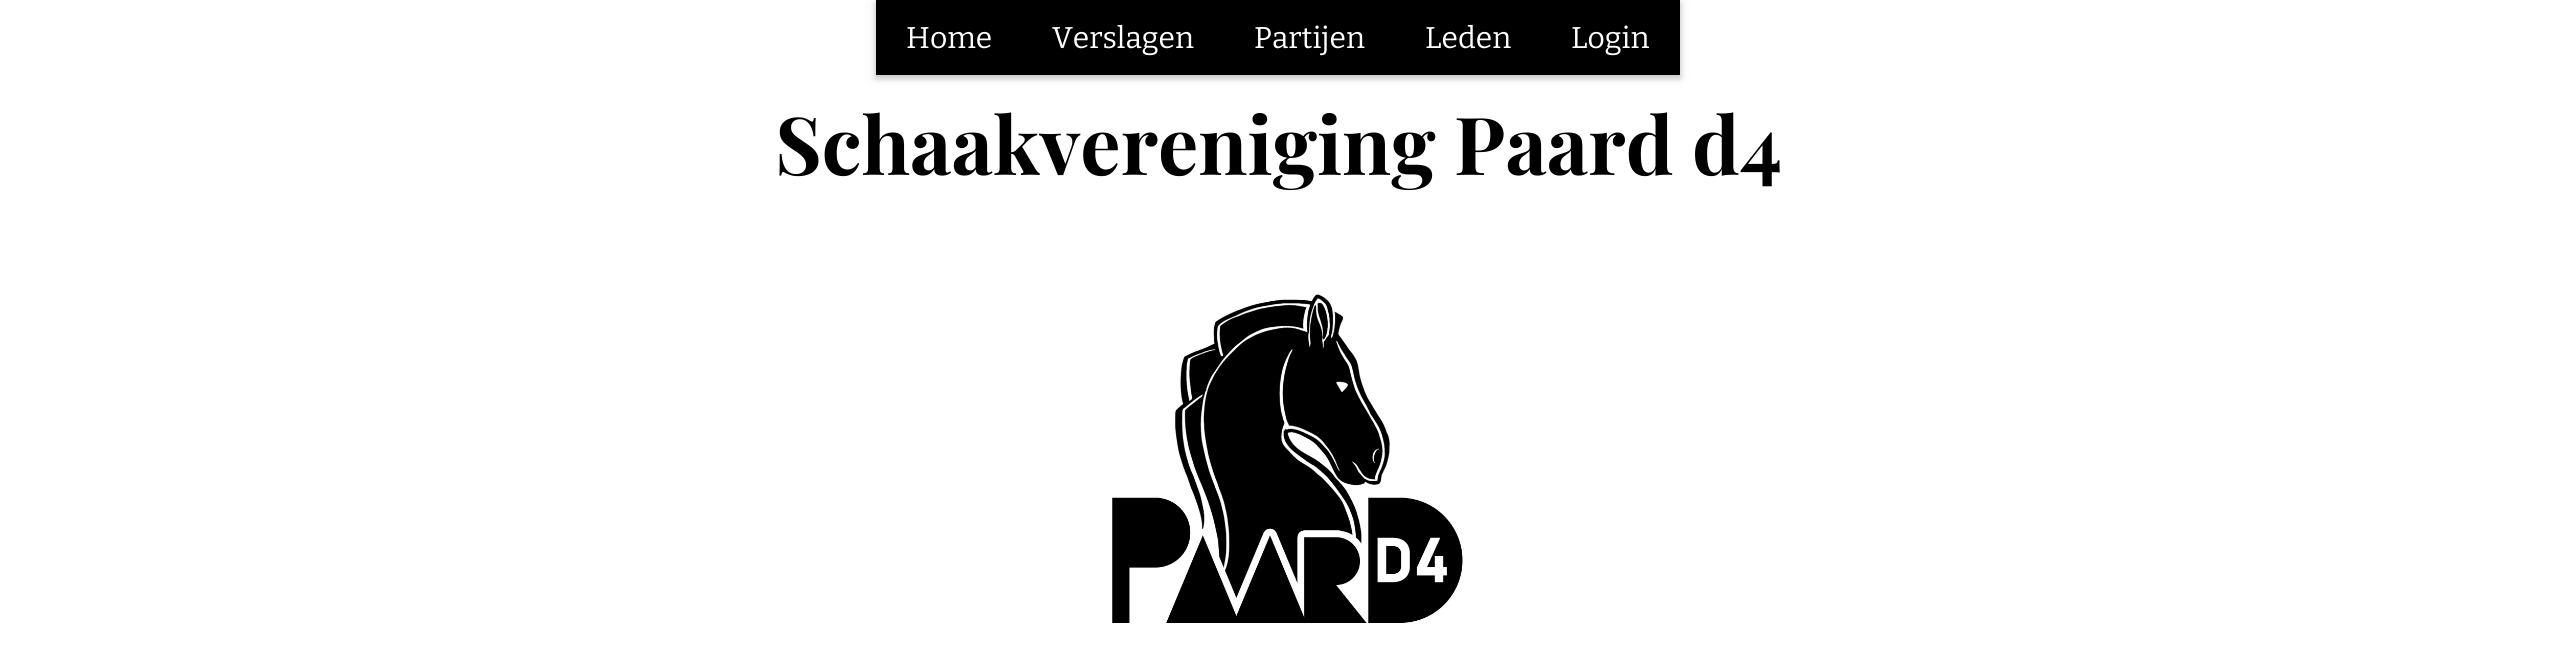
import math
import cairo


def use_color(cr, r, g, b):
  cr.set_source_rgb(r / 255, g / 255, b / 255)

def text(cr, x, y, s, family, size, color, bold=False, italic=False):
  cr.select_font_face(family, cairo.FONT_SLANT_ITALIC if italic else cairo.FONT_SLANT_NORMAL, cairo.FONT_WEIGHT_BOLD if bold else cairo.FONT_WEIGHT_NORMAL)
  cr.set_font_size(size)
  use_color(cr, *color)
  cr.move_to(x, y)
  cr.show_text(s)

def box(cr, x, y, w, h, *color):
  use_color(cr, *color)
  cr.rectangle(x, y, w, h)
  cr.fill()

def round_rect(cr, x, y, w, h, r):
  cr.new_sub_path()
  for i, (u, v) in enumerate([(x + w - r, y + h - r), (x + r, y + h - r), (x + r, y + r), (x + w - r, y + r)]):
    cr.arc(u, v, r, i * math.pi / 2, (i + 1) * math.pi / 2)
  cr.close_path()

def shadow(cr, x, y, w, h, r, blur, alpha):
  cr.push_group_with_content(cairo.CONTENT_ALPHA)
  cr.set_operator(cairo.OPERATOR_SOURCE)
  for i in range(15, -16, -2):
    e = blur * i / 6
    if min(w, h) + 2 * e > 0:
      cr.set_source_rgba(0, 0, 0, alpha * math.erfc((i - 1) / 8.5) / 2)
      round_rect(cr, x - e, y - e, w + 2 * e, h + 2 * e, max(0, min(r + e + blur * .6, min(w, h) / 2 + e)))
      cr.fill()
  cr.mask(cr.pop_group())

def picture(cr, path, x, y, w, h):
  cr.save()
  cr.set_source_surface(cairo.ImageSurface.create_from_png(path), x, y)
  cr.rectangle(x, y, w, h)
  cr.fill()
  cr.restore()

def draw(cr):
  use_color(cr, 255, 255, 255)
  cr.paint()
  use_color(cr, 0, 0, 0)
  shadow(cr, 876, 3, 804, 75, 0, 6, 0.12)
  shadow(cr, 876, 3, 804, 75, 0, 3, 0.16)
  box(cr, 876, 0, 804, 75, 0, 0, 0)
  picture(cr, "img_01.png", 1111, 294, 352, 329)
  text(cr, 906, 48, "Home", "Bitter Thin", 30, (255, 255, 255))
  text(cr, 1052, 48, "Verslagen", "Bitter Thin", 30, (255, 255, 255))
  text(cr, 1254, 48, "Partijen", "Bitter Thin", 30, (255, 255, 255))
  text(cr, 1425, 48, "Leden", "Bitter Thin", 30, (255, 255, 255))
  text(cr, 1571, 48, "Login", "Bitter Thin", 30, (255, 255, 255))
  text(cr, 775, 175, "Schaakvereniging Paard d4", "Playfair Display", 80, (0, 0, 0), bold=True)


surface = cairo.ImageSurface(cairo.FORMAT_RGB24, 2556, 672)
cr = cairo.Context(surface)
options = cairo.FontOptions()
options.set_hint_metrics(cairo.HINT_METRICS_OFF)
options.set_hint_style(cairo.HINT_STYLE_NONE)
cr.set_font_options(options)
cr.set_miter_limit(4)
draw(cr)
surface.write_to_png("out.png")
